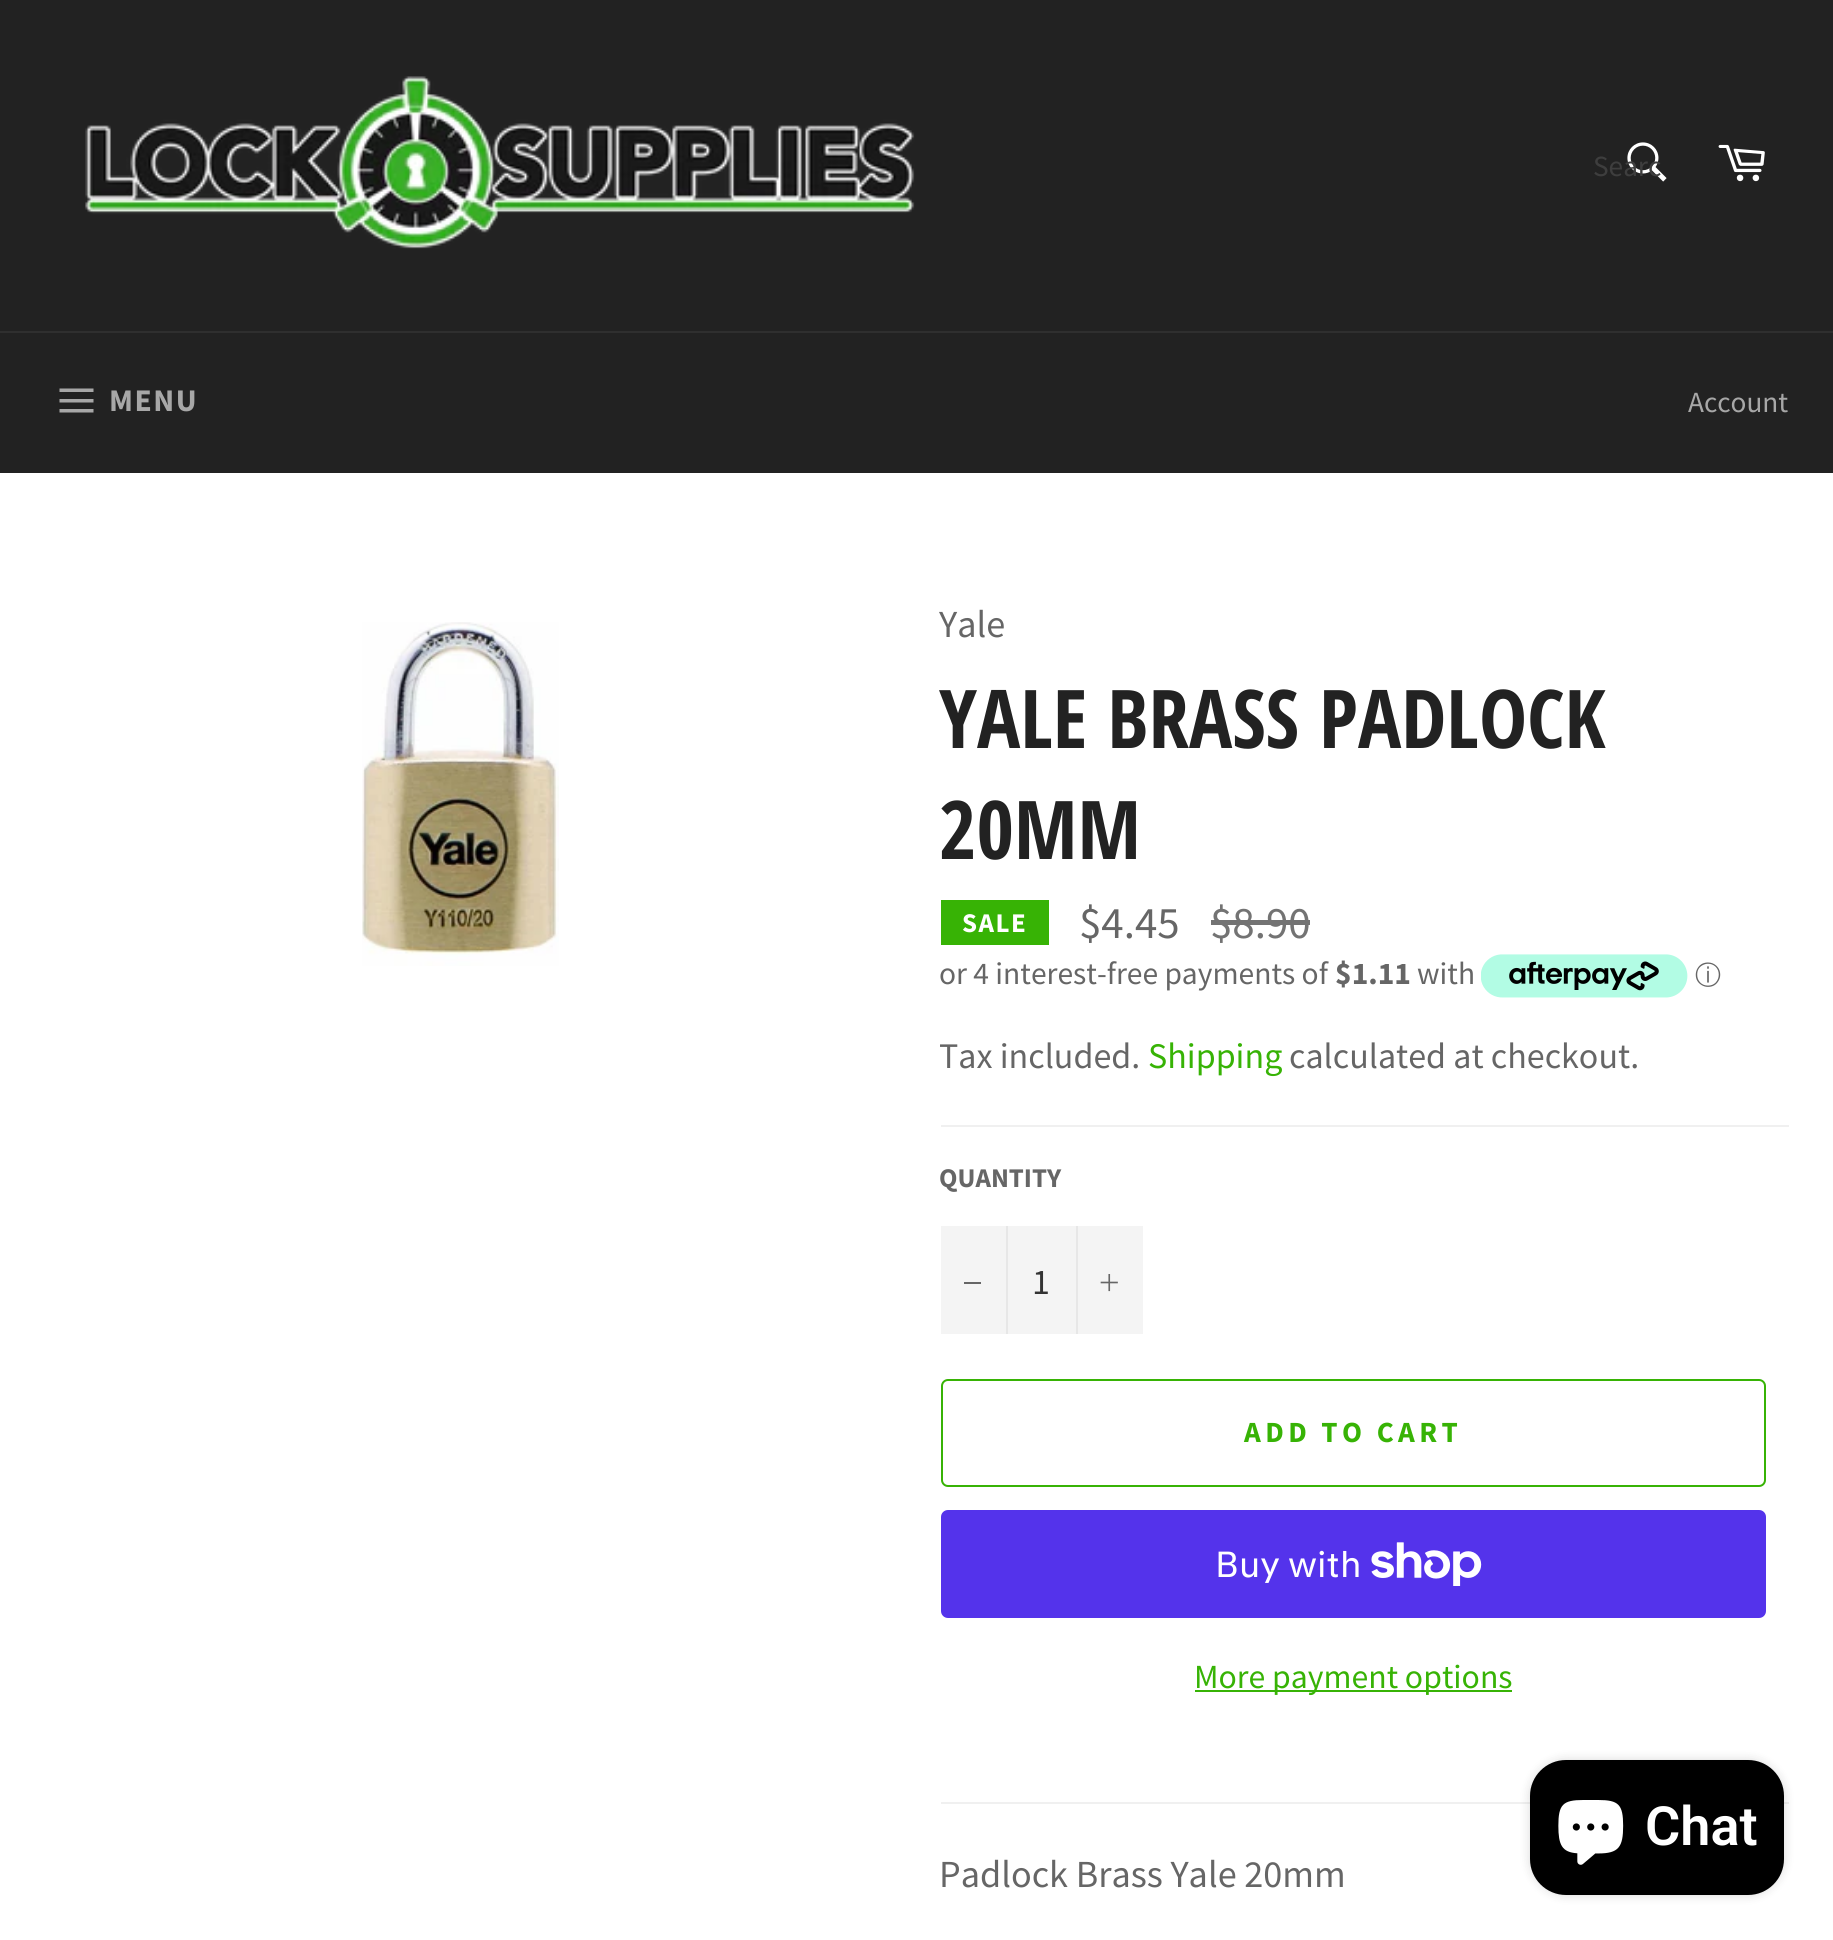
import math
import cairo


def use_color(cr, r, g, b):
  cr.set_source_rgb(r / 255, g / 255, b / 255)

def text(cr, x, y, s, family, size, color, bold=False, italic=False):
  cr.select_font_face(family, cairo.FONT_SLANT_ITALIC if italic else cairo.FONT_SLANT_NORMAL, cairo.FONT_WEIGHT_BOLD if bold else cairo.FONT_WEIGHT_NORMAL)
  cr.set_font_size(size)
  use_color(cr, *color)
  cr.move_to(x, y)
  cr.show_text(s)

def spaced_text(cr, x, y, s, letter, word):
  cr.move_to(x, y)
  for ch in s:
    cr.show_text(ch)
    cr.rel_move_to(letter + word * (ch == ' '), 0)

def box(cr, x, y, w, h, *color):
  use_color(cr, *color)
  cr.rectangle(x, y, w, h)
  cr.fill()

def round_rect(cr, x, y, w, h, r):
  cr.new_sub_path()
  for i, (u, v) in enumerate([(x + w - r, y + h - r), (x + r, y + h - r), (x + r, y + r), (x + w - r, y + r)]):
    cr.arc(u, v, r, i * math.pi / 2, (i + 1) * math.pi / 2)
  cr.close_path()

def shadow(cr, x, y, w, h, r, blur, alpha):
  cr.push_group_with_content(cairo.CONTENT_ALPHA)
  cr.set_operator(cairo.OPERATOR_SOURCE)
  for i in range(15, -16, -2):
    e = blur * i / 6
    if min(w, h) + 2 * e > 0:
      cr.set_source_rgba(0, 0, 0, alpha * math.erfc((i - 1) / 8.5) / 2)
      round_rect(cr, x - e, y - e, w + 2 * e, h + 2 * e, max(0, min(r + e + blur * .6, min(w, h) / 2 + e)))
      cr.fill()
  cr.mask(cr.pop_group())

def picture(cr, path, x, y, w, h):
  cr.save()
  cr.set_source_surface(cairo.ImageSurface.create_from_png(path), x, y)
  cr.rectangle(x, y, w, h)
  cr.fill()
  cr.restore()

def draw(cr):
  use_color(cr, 34, 34, 34)
  cr.paint()
  picture(cr, "img_01.png", 85, 76, 830, 173)
  picture(cr, "img_02.png", 1627, 142, 40, 40)
  picture(cr, "img_03.png", 1718, 144, 47, 38)
  box(cr, 0, 331, 1833, 2, 47, 47, 47)
  use_color(cr, 167, 167, 167)
  cr.new_path()
  cr.move_to(59.5, 399)
  cr.line_to(93.5, 399)
  cr.line_to(93.5, 402.5)
  cr.line_to(59.5, 402.5)
  cr.close_path()
  cr.move_to(59.5, 388.5)
  cr.line_to(93.5, 388.5)
  cr.line_to(93.5, 392)
  cr.line_to(59.5, 392)
  cr.close_path()
  cr.move_to(59.5, 409)
  cr.line_to(93.5, 409)
  cr.line_to(93.5, 412.5)
  cr.line_to(59.5, 412.5)
  cr.close_path()
  cr.fill()
  box(cr, 0, 473, 1833, 1467, 255, 255, 255)
  picture(cr, "img_04.png", 362, 622, 197, 344)
  box(cr, 941, 900, 108, 45, 55, 179, 5)
  box(cr, 1211, 920, 99, 5, 115, 115, 115)
  picture(cr, "img_05.png", 1481, 954, 207, 44)
  box(cr, 941, 1125, 848, 2, 240, 240, 240)
  box(cr, 941, 1226, 202, 108, 244, 244, 244)
  box(cr, 1006, 1226, 2, 108, 231, 231, 231)
  box(cr, 964, 1282, 17, 2, 102, 102, 102)
  box(cr, 1076, 1226, 2, 108, 231, 231, 231)
  picture(cr, "img_06.png", 1100, 1274, 18, 18)
  round_rect(cr, 942, 1380, 823, 106, 6)
  use_color(cr, 55, 179, 5)
  cr.stroke()
  use_color(cr, 84, 51, 235)
  round_rect(cr, 941, 1510, 825, 108, 7)
  cr.fill()
  picture(cr, "img_07.png", 1371, 1542, 111, 44)
  box(cr, 1195, 1690, 317, 2, 55, 179, 5)
  box(cr, 941, 1802, 848, 2, 240, 240, 240)
  use_color(cr, 0, 0, 0)
  shadow(cr, 1530, 1760, 254, 135, 36, 5.5, 0.15)
  use_color(cr, 0, 0, 0)
  round_rect(cr, 1530, 1760, 254, 135, 36)
  cr.fill()
  picture(cr, "img_08.png", 1558, 1800, 66, 65)
  text(cr, 1593, 176, "Searc", "Source Sans Pro", 29.25, (62, 62, 62))
  cr.select_font_face("Source Sans Pro", cairo.FONT_SLANT_NORMAL, cairo.FONT_WEIGHT_BOLD)
  cr.set_font_size(31.5)
  use_color(cr, 167, 167, 167)
  spaced_text(cr, 109, 411, "MENU", 1.5, 0)
  text(cr, 1688, 412, "Account", "Source Sans Pro", 29.25, (167, 167, 167))
  text(cr, 939, 637, "Yale", "Source Sans Pro", 38.25, (102, 102, 102))
  text(cr, 939, 748, "YALE BRASS PADLOCK", "Open Sans Condensed", 81, (34, 34, 34), bold=True)
  text(cr, 939, 859, "20MM", "Open Sans Condensed", 81, (34, 34, 34), bold=True)
  cr.select_font_face("Source Sans Pro", cairo.FONT_SLANT_NORMAL, cairo.FONT_WEIGHT_BOLD)
  cr.set_font_size(27)
  use_color(cr, 255, 255, 255)
  spaced_text(cr, 962, 932, "SALE", 1.5, 0)
  text(cr, 1079, 938, "$4.45", "Source Sans Pro", 45, (102, 102, 102))
  text(cr, 1210, 938, "$8.90", "Source Sans Pro", 45, (115, 115, 115))
  text(cr, 939, 984, "or 4 interest-free payments of", "Source Sans Pro", 31.5, (102, 102, 102))
  text(cr, 1335, 984, "$1.11", "Source Sans Pro", 31.5, (102, 102, 102), bold=True)
  text(cr, 1417, 984, "with", "Source Sans Pro", 31.5, (102, 102, 102))
  text(cr, 1695, 984, "ⓘ", "WenQuanYi Zen Hei Medium", 26, (102, 102, 102))
  text(cr, 939, 1068, "Tax included.", "Source Sans Pro", 36, (102, 102, 102))
  text(cr, 1148, 1068, "Shipping", "Source Sans Pro", 36, (55, 179, 5))
  text(cr, 1289, 1068, "calculated at checkout.", "Source Sans Pro", 36, (102, 102, 102))
  text(cr, 939, 1187, "QUANTITY", "Source Sans Pro", 27, (102, 102, 102), bold=True)
  text(cr, 1032, 1294, "1", "Source Sans Pro", 36, (51, 51, 51))
  cr.select_font_face("Source Sans Pro", cairo.FONT_SLANT_NORMAL, cairo.FONT_WEIGHT_BOLD)
  cr.set_font_size(29.25)
  use_color(cr, 55, 179, 5)
  spaced_text(cr, 1244, 1442, "ADD TO CART", 4.4, 0)
  text(cr, 1215, 1577, "Buy with", "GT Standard", 36, (255, 255, 255))
  text(cr, 1194, 1688, "More payment options", "Source Sans Pro", 33.75, (55, 179, 5))
  text(cr, 939, 1887, "Padlock Brass Yale 20mm", "Source Sans Pro", 38.25, (102, 102, 102))
  text(cr, 1645, 1845, "Chat", "Roboto SemiBold", 54, (255, 255, 255))


surface = cairo.ImageSurface(cairo.FORMAT_RGB24, 1833, 1940)
cr = cairo.Context(surface)
options = cairo.FontOptions()
options.set_hint_metrics(cairo.HINT_METRICS_OFF)
options.set_hint_style(cairo.HINT_STYLE_NONE)
cr.set_font_options(options)
cr.set_miter_limit(4)
draw(cr)
surface.write_to_png("out.png")
